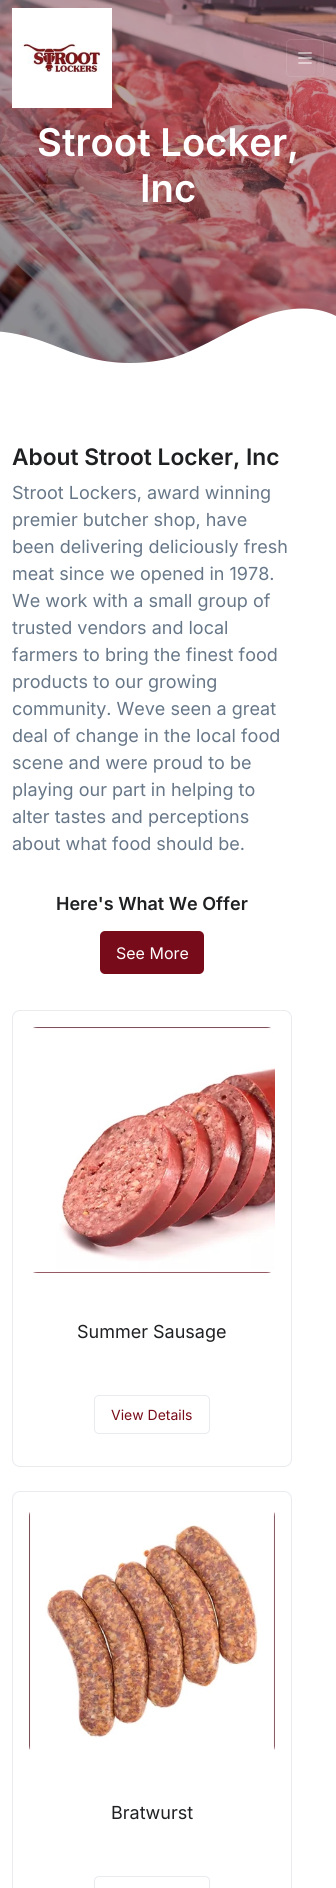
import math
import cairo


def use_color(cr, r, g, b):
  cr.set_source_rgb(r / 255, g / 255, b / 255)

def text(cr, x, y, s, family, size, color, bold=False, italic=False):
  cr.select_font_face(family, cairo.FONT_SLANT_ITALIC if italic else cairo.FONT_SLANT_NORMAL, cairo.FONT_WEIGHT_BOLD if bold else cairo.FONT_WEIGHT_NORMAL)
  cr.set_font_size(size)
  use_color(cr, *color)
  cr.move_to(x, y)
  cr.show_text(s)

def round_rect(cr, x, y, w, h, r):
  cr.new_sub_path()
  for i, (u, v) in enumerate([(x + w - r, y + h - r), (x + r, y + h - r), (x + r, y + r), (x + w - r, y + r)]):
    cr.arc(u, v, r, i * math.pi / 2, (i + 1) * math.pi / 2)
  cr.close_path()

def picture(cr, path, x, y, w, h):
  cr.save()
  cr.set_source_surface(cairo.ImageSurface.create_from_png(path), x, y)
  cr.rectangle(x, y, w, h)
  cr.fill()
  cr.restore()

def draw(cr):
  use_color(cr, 255, 255, 255)
  cr.paint()
  picture(cr, "img_03.png", 0, 0, 336, 363)
  picture(cr, "img_01.png", 12, 8, 100, 100)
  round_rect(cr, 286.5, 39.5, 37, 37, 4.5)
  cr.set_source_rgba(1, 1, 1, 0.1)
  cr.set_line_width(1)
  cr.stroke()
  picture(cr, "img_02.png", 298, 52, 14, 12)
  use_color(cr, 255, 255, 255)
  cr.new_path()
  cr.move_to(25, 336)
  cr.curve_to(46, 341, 65, 351, 86, 357)
  cr.curve_to(115, 365, 145, 365, 175, 357)
  cr.curve_to(203, 348, 232, 328, 260, 317)
  cr.curve_to(285, 308, 312, 304, 336, 316)
  cr.line_to(336, 364)
  cr.line_to(-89, 364)
  cr.line_to(-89, 350)
  cr.curve_to(-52, 331, -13, 326, 25, 336)
  cr.close_path()
  cr.fill()
  use_color(cr, 120, 11, 25)
  round_rect(cr, 100, 931, 104, 43, 5)
  cr.fill()
  round_rect(cr, 12.5, 1010.5, 279, 456, 7.5)
  use_color(cr, 233, 235, 239)
  cr.stroke()
  picture(cr, "img_04.png", 33, 1027, 242, 246)
  round_rect(cr, 94.5, 1395.5, 115, 38, 4.5)
  cr.stroke()
  round_rect(cr, 12.5, 1491.5, 279, 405, 7.5)
  cr.stroke()
  picture(cr, "img_05.png", 29, 1512, 246, 238)
  round_rect(cr, 94.5, 1876.5, 115, 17, 4.5)
  cr.stroke()
  text(cr, 37, 156, "Stroot Locker,", "Inter SemiBold", 38.25, (255, 255, 255))
  text(cr, 140, 202, "Inc", "Inter SemiBold", 38.25, (255, 255, 255))
  text(cr, 12, 465, "About Stroot Locker, Inc", "Inter SemiBold", 22.75, (30, 32, 34))
  text(cr, 12, 499, "Stroot Lockers, award winning", "Inter", 18, (103, 119, 136))
  text(cr, 12, 526, "premier butcher shop, have", "Inter", 18, (103, 119, 136))
  text(cr, 12, 553, "been delivering deliciously fresh", "Inter", 18, (103, 119, 136))
  text(cr, 12, 580, "meat since we opened in 1978.", "Inter", 18, (103, 119, 136))
  text(cr, 12, 607, "We work with a small group of", "Inter", 18, (103, 119, 136))
  text(cr, 12, 634, "trusted vendors and local", "Inter", 18, (103, 119, 136))
  text(cr, 12, 661, "farmers to bring the finest food", "Inter", 18, (103, 119, 136))
  text(cr, 12, 688, "products to our growing", "Inter", 18, (103, 119, 136))
  text(cr, 12, 715, "community. Weve seen a great", "Inter", 18, (103, 119, 136))
  text(cr, 12, 742, "deal of change in the local food", "Inter", 18, (103, 119, 136))
  text(cr, 12, 769, "scene and were proud to be", "Inter", 18, (103, 119, 136))
  text(cr, 12, 796, "playing our part in helping to", "Inter", 18, (103, 119, 136))
  text(cr, 12, 823, "alter tastes and perceptions", "Inter", 18, (103, 119, 136))
  text(cr, 12, 850, "about what food should be.", "Inter", 18, (103, 119, 136))
  text(cr, 56, 910, "Here's What We Offer", "Inter SemiBold", 18, (30, 32, 34))
  text(cr, 116, 959, "See More", "Inter", 16, (255, 255, 255))
  text(cr, 77, 1338, "Summer Sausage", "Inter", 18, (30, 32, 34))
  text(cr, 111, 1420, "View Details", "Inter", 14, (120, 11, 25))
  text(cr, 111, 1819, "Bratwurst", "Inter", 18, (30, 32, 34))


surface = cairo.ImageSurface(cairo.FORMAT_RGB24, 336, 1888)
cr = cairo.Context(surface)
options = cairo.FontOptions()
options.set_hint_metrics(cairo.HINT_METRICS_OFF)
options.set_hint_style(cairo.HINT_STYLE_NONE)
cr.set_font_options(options)
cr.set_miter_limit(4)
draw(cr)
surface.write_to_png("out.png")
